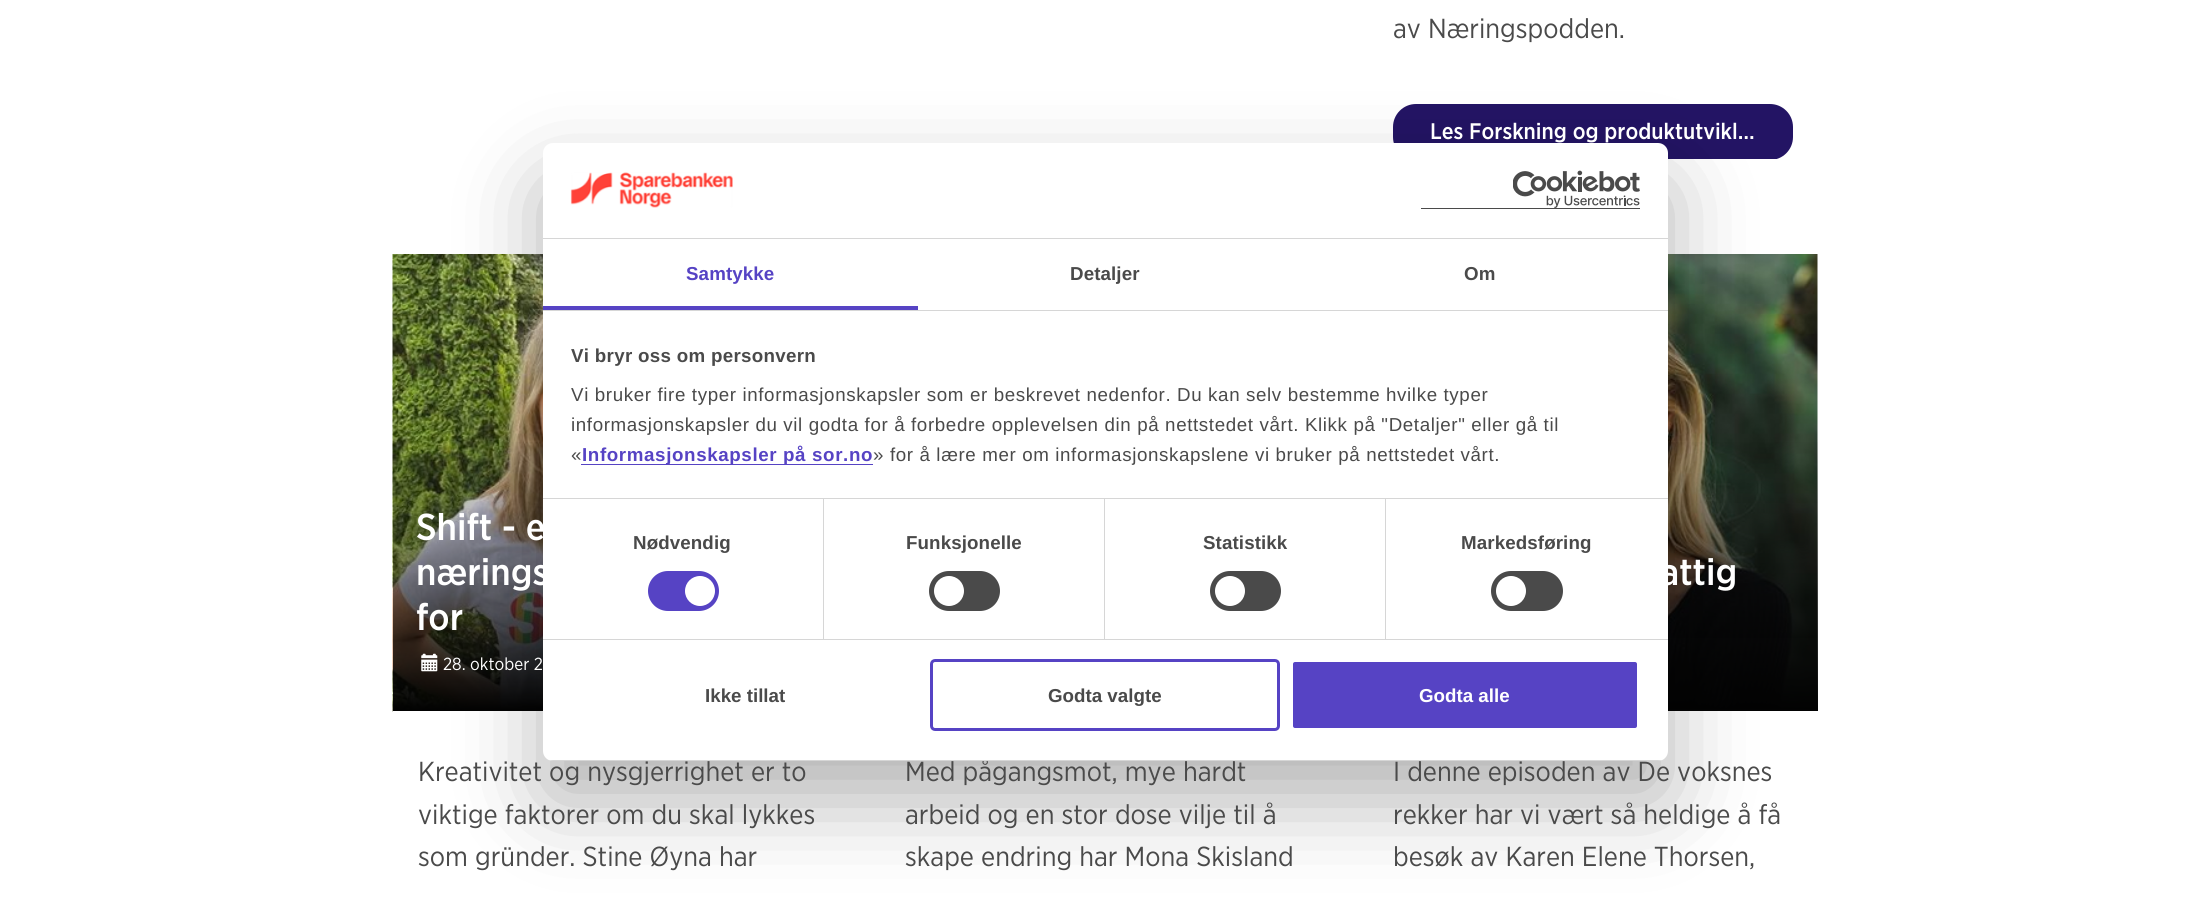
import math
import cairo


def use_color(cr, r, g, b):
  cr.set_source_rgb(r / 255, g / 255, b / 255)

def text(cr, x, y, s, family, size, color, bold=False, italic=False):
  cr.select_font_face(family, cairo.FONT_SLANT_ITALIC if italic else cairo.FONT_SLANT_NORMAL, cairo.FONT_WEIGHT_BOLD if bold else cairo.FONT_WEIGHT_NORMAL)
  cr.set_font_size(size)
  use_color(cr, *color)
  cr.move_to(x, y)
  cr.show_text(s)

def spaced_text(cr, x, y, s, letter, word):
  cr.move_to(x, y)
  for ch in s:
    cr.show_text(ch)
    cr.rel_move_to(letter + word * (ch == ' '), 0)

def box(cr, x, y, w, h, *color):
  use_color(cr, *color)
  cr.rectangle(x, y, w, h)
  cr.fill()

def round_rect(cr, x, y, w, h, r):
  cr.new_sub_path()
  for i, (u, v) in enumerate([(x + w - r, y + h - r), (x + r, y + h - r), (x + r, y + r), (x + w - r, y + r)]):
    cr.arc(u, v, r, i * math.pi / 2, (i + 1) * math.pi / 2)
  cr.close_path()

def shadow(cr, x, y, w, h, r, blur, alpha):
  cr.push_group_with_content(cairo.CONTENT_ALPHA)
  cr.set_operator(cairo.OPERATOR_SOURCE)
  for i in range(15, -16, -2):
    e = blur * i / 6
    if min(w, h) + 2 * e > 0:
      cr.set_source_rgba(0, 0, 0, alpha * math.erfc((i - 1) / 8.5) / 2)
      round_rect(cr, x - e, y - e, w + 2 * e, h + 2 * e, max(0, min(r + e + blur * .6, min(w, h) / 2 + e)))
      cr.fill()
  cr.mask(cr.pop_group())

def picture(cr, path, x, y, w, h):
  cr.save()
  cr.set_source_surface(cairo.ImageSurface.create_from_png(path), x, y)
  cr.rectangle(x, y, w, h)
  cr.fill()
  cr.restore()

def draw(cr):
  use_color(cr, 255, 255, 255)
  cr.paint()
  use_color(cr, 35, 20, 100)
  round_rect(cr, 1393, 104, 400, 56, 23)
  cr.fill()
  box(cr, 1668, 159, 113, 1, 255, 255, 255)
  picture(cr, "img_01.png", 392, 254, 151, 458)
  box(cr, 393, 711, 150, 1, 255, 255, 255)
  gradient = cairo.LinearGradient(618, 436, 618, 711)
  gradient.add_color_stop_rgba(0, 0.008, 0.008, 0.008, 0)
  gradient.add_color_stop_rgba(1, 0.008, 0.008, 0.008, 1)
  cr.set_source(gradient)
  cr.rectangle(393, 442, 150, 269)
  cr.fill()
  picture(cr, "img_02.png", 421, 653, 17, 19)
  picture(cr, "img_03.png", 1668, 254, 150, 455)
  gradient = cairo.LinearGradient(1593, 436, 1593, 711)
  gradient.add_color_stop_rgba(0, 0.008, 0.008, 0.008, 0)
  gradient.add_color_stop_rgba(1, 0.008, 0.008, 0.008, 1)
  cr.set_source(gradient)
  cr.rectangle(1668, 442, 150, 269)
  cr.fill()
  use_color(cr, 0, 0, 0)
  shadow(cr, 543, 183, 1125, 618, 10, 42.5, 0.3)
  text(cr, 1393, 38, "av Næringspodden.", "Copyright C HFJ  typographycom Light", 27.5, (74, 74, 74))
  text(cr, 1430, 139, "Les Forskning og produktutvikl…", "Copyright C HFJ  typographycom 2 Light", 22.5, (255, 255, 255))
  text(cr, 416, 540, "Shift - e", "Copyright C HFJ  typographycom 2 Light", 37.5, (255, 255, 255))
  text(cr, 416, 585, "nærings", "Copyright C HFJ  typographycom 2 Light", 37.5, (255, 255, 255))
  text(cr, 416, 630, "for", "Copyright C HFJ  typographycom 2 Light", 37.5, (255, 255, 255))
  text(cr, 443, 670, "28. oktober 2", "Copyright C HFJ  typographycom Light", 17.5, (255, 255, 255))
  text(cr, 418, 781, "Kreativitet og nysgjerrighet er to", "Copyright C HFJ  typographycom Light", 27.5, (74, 74, 74))
  text(cr, 418, 824, "viktige faktorer om du skal lykkes", "Copyright C HFJ  typographycom Light", 27.5, (74, 74, 74))
  text(cr, 418, 866, "som gründer. Stine Øyna har", "Copyright C HFJ  typographycom Light", 27.5, (74, 74, 74))
  text(cr, 905, 781, "Med pågangsmot, mye hardt", "Copyright C HFJ  typographycom Light", 27.5, (74, 74, 74))
  text(cr, 905, 824, "arbeid og en stor dose vilje til å", "Copyright C HFJ  typographycom Light", 27.5, (74, 74, 74))
  text(cr, 905, 866, "skape endring har Mona Skisland", "Copyright C HFJ  typographycom Light", 27.5, (74, 74, 74))
  text(cr, 1660, 585, "attig", "Copyright C HFJ  typographycom 2 Light", 37.5, (255, 255, 255))
  text(cr, 1393, 781, "I denne episoden av De voksnes", "Copyright C HFJ  typographycom Light", 27.5, (74, 74, 74))
  text(cr, 1393, 824, "rekker har vi vært så heldige å få", "Copyright C HFJ  typographycom Light", 27.5, (74, 74, 74))
  text(cr, 1393, 866, "besøk av Karen Elene Thorsen,", "Copyright C HFJ  typographycom Light", 27.5, (74, 74, 74))
  use_color(cr, 255, 255, 255)
  round_rect(cr, 543, 143, 1125, 618, 10)
  cr.fill()
  box(cr, 543, 238, 1125, 1, 214, 214, 214)
  picture(cr, "img_04.png", 570, 172, 163, 36)
  box(cr, 1421, 208, 219, 1, 74, 74, 74)
  picture(cr, "img_05.png", 1513, 170, 127, 38)
  box(cr, 543, 310, 1125, 1, 214, 214, 214)
  box(cr, 543, 306, 375, 4, 86, 67, 196)
  cr.select_font_face("Liberation Sans", cairo.FONT_SLANT_NORMAL, cairo.FONT_WEIGHT_BOLD)
  cr.set_font_size(18.75)
  spaced_text(cr, 686, 280, "Samtykke", 0.1, 0)
  use_color(cr, 74, 74, 74)
  spaced_text(cr, 1070, 280, "Detaljer", 0.1, 0)
  spaced_text(cr, 1464, 280, "Om", 0.1, 0)
  box(cr, 543, 498, 1125, 1, 214, 214, 214)
  use_color(cr, 74, 74, 74)
  spaced_text(cr, 571, 362, "Vi bryr oss om personvern", 0.3, 0)
  cr.select_font_face("Liberation Sans")
  spaced_text(cr, 571, 401, "Vi bruker fire typer informasjonskapsler som er beskrevet nedenfor. Du kan selv bestemme hvilke typer", 0.62, 0)
  spaced_text(cr, 571, 431, "informasjonskapsler du vil godta for å forbedre opplevelsen din på nettstedet vårt. Klikk på \"Detaljer\" eller gå til", 0.62, 0)
  spaced_text(cr, 571, 461, "«", 0.62, 0)
  box(cr, 581, 464, 292, 1, 86, 67, 196)
  cr.select_font_face("Liberation Sans", cairo.FONT_SLANT_NORMAL, cairo.FONT_WEIGHT_BOLD)
  spaced_text(cr, 582, 461, "Informasjonskapsler på sor.no", 0.62, 0)
  cr.select_font_face("Liberation Sans")
  use_color(cr, 74, 74, 74)
  spaced_text(cr, 873, 461, "» for å lære mer om informasjonskapslene vi bruker på nettstedet vårt.", 0.62, 0)
  box(cr, 543, 639, 1125, 1, 214, 214, 214)
  box(cr, 823, 499, 1, 140, 214, 214, 214)
  cr.select_font_face("Liberation Sans", cairo.FONT_SLANT_NORMAL, cairo.FONT_WEIGHT_BOLD)
  use_color(cr, 74, 74, 74)
  spaced_text(cr, 633, 549, "Nødvendig", 0.1, 0)
  use_color(cr, 86, 67, 196)
  round_rect(cr, 648, 571, 71, 40, 20)
  cr.fill()
  use_color(cr, 255, 255, 255)
  cr.arc(700, 591, 15, 0, 2 * math.pi)
  cr.fill()
  box(cr, 1104, 499, 1, 140, 214, 214, 214)
  use_color(cr, 74, 74, 74)
  spaced_text(cr, 906, 549, "Funksjonelle", 0.1, 0)
  round_rect(cr, 929, 571, 71, 40, 20)
  cr.fill()
  use_color(cr, 255, 255, 255)
  cr.arc(949, 591, 15, 0, 2 * math.pi)
  cr.fill()
  box(cr, 1385, 499, 1, 140, 214, 214, 214)
  use_color(cr, 74, 74, 74)
  spaced_text(cr, 1203, 549, "Statistikk", 0.1, 0)
  round_rect(cr, 1210, 571, 71, 40, 20)
  cr.fill()
  use_color(cr, 255, 255, 255)
  cr.arc(1230, 591, 15, 0, 2 * math.pi)
  cr.fill()
  use_color(cr, 74, 74, 74)
  spaced_text(cr, 1461, 549, "Markedsføring", 0.1, 0)
  round_rect(cr, 1491, 571, 72, 40, 20)
  cr.fill()
  use_color(cr, 255, 255, 255)
  cr.arc(1511, 591, 15, 0, 2 * math.pi)
  cr.fill()
  cr.save()
  round_rect(cr, 543, 143, 1125, 618, 10)
  cr.clip()
  box(cr, 543, 760, 1125, 1, 214, 214, 214)
  cr.restore()
  text(cr, 705, 702, "Ikke tillat", "Liberation Sans", 18.75, (74, 74, 74), bold=True)
  round_rect(cr, 931.5, 660.5, 347, 69, 3.5)
  use_color(cr, 86, 67, 196)
  cr.set_line_width(3)
  cr.stroke()
  text(cr, 1048, 702, "Godta valgte", "Liberation Sans", 18.75, (74, 74, 74), bold=True)
  use_color(cr, 86, 67, 196)
  round_rect(cr, 1291.5, 660.5, 347, 69, 3.5)
  cr.fill_preserve()
  use_color(cr, 255, 255, 255)
  cr.stroke()
  text(cr, 1419, 702, "Godta alle", "Liberation Sans", 18.75, (255, 255, 255), bold=True)


surface = cairo.ImageSurface(cairo.FORMAT_RGB24, 2209, 903)
cr = cairo.Context(surface)
options = cairo.FontOptions()
options.set_hint_metrics(cairo.HINT_METRICS_OFF)
options.set_hint_style(cairo.HINT_STYLE_NONE)
cr.set_font_options(options)
cr.set_miter_limit(4)
draw(cr)
surface.write_to_png("out.png")
